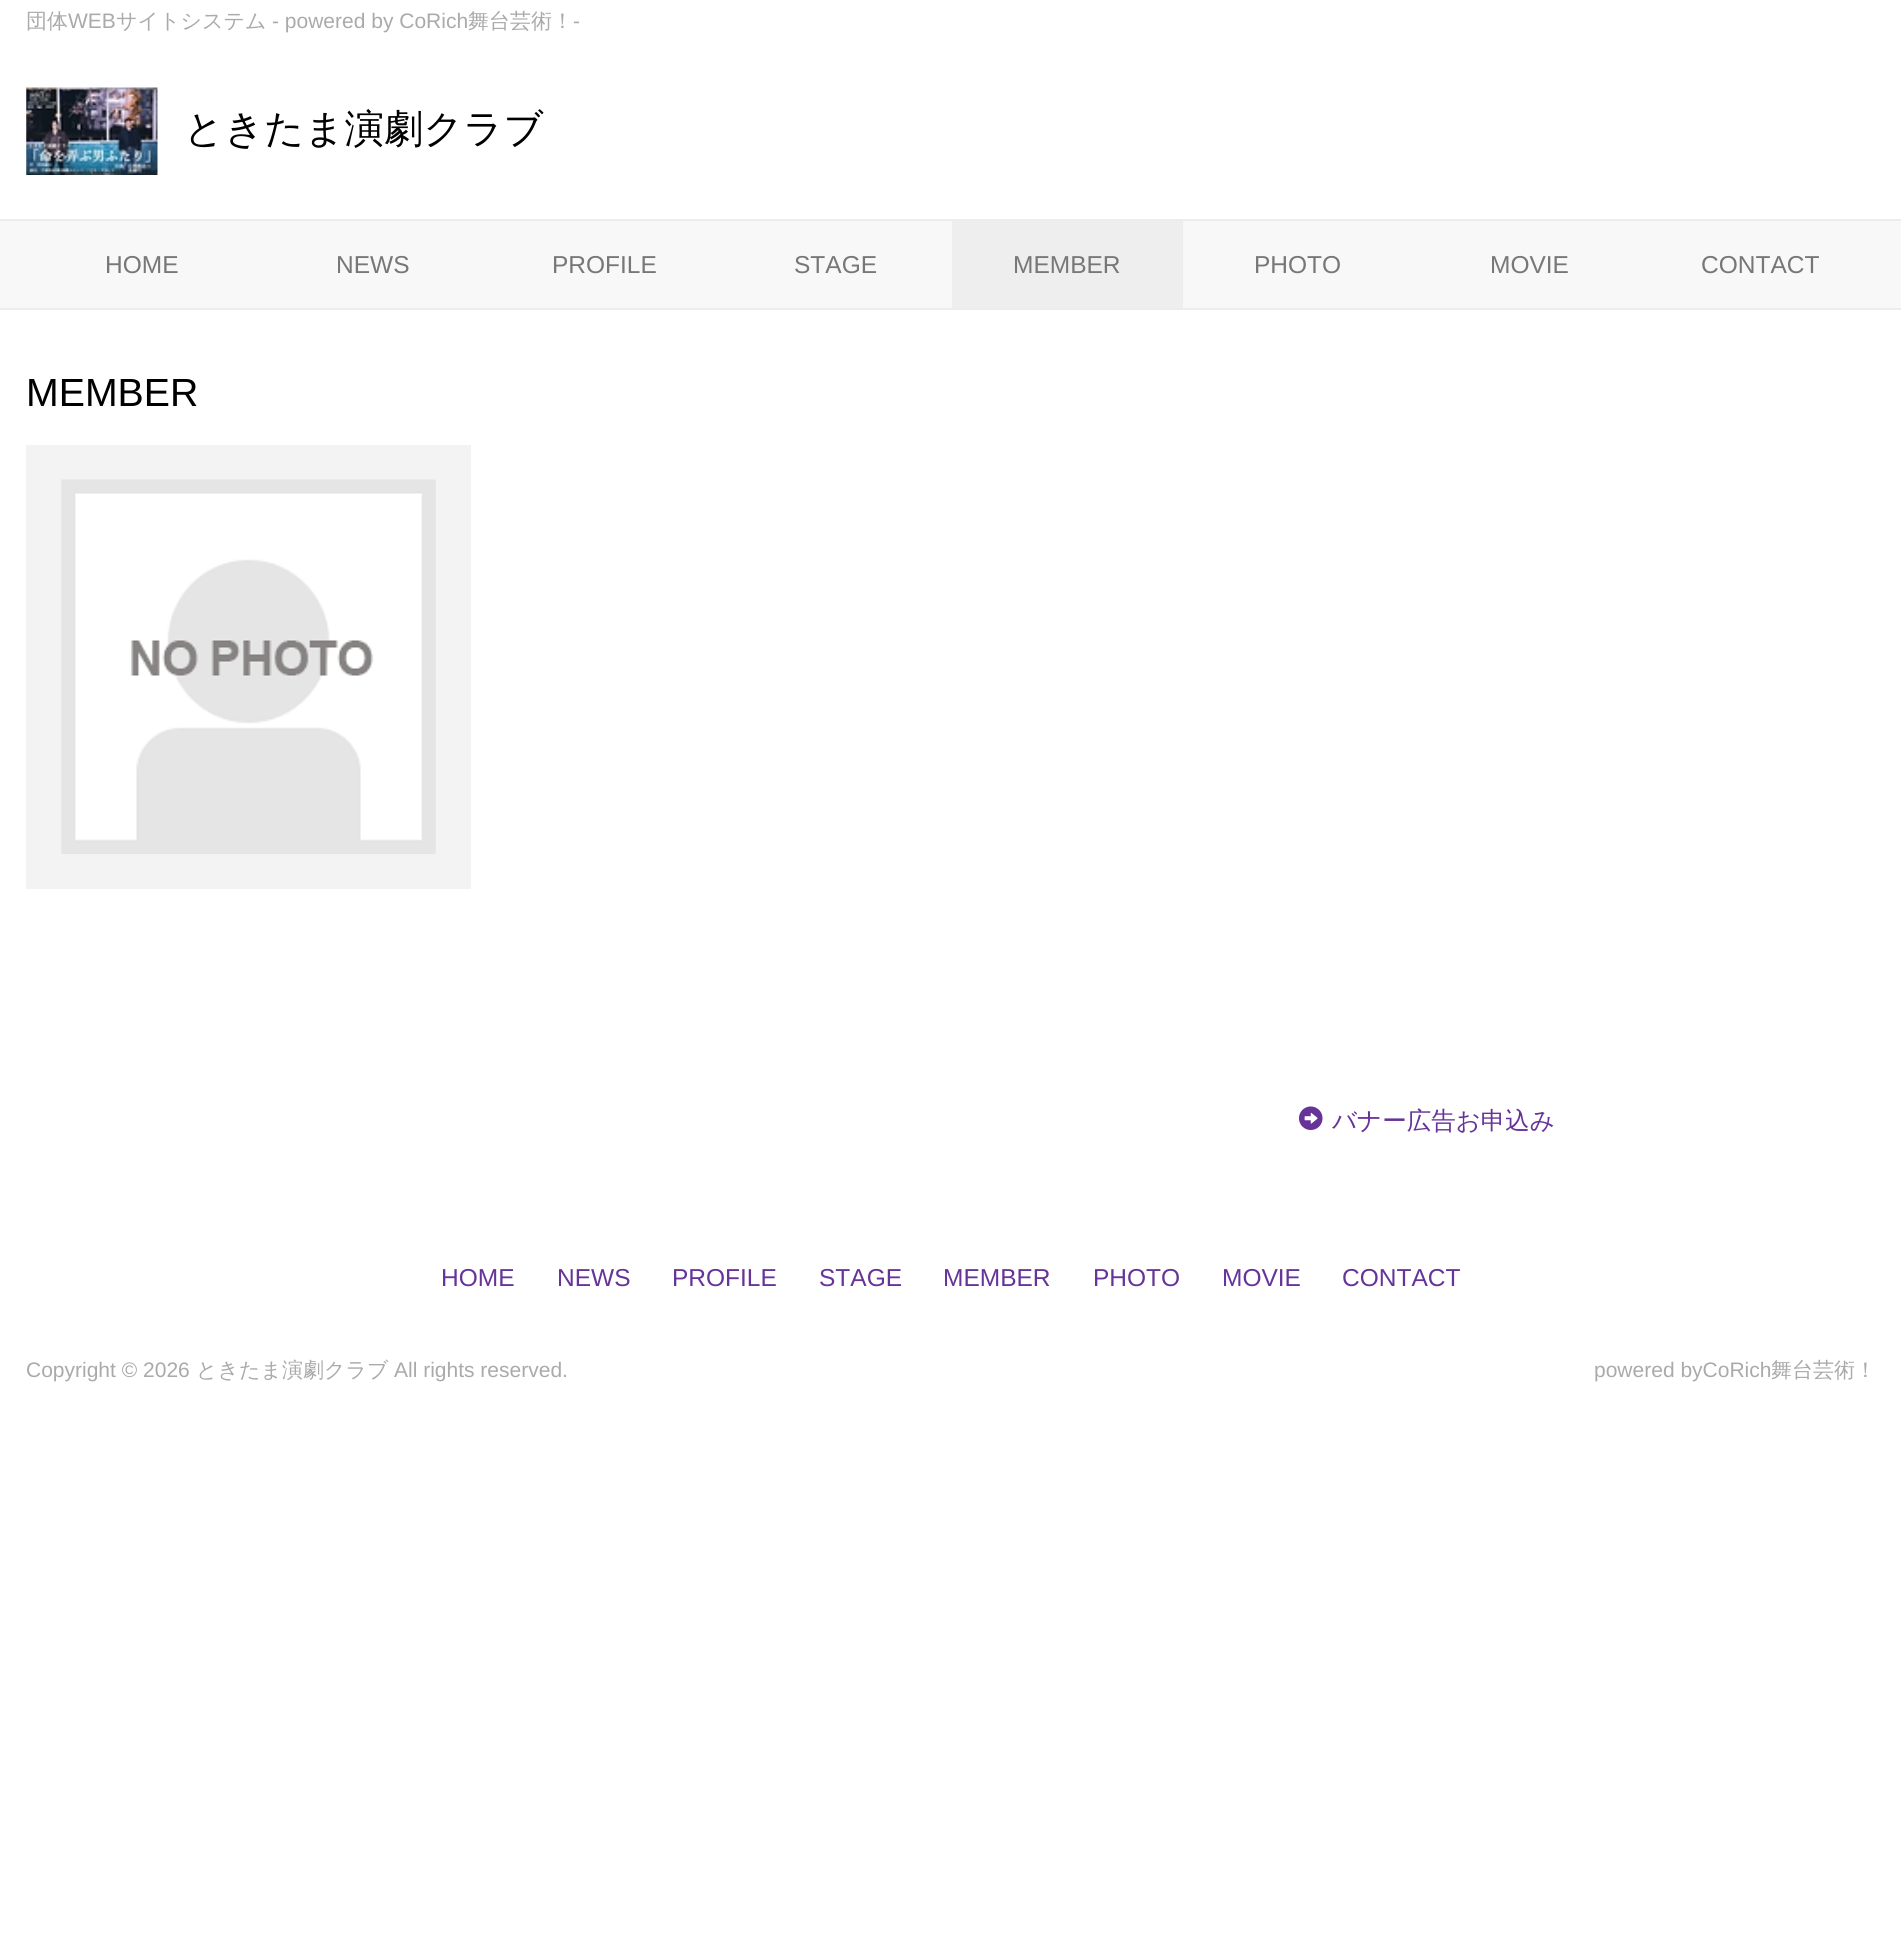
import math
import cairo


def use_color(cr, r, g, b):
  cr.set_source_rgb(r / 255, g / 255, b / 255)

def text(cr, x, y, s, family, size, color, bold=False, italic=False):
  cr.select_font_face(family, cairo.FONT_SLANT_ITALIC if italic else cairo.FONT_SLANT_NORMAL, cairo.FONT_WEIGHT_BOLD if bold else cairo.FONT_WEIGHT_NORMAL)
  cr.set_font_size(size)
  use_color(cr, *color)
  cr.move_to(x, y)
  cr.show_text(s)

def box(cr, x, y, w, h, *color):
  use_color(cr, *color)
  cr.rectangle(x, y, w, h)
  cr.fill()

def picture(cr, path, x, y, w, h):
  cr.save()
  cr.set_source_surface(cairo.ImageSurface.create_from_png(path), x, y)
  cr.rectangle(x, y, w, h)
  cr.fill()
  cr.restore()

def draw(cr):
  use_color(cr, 255, 255, 255)
  cr.paint()
  picture(cr, "img_01.png", 26, 87, 132, 88)
  box(cr, 0, 221, 1901, 87, 248, 248, 248)
  box(cr, 0, 219, 1901, 2, 236, 236, 236)
  box(cr, 0, 308, 1901, 2, 236, 236, 236)
  box(cr, 952, 221, 231, 87, 238, 238, 238)
  box(cr, 26, 445, 445, 444, 243, 243, 243)
  picture(cr, "img_02.png", 61, 479, 375, 375)
  picture(cr, "img_03.png", 1298, 1106, 25, 25)
  text(cr, 26, 28, "団体", "WenQuanYi Zen Hei Medium", 21, (170, 170, 170))
  text(cr, 68, 28, "WEB", "Liberation Sans", 21, (170, 170, 170))
  text(cr, 116, 28, "サイトシステム", "WenQuanYi Zen Hei Medium", 21, (170, 170, 170))
  text(cr, 272, 28, "- powered by CoRich", "Liberation Sans", 21, (170, 170, 170))
  text(cr, 468, 28, "舞台芸術！", "WenQuanYi Zen Hei Medium", 21, (170, 170, 170))
  text(cr, 573, 28, "-", "Liberation Sans", 21, (170, 170, 170))
  text(cr, 184, 142, "ときたま演劇クラブ", "WenQuanYi Zen Hei Medium", 39.25, (0, 0, 0))
  text(cr, 105, 273, "HOME", "Liberation Sans", 24.5, (119, 119, 119))
  text(cr, 336, 273, "NEWS", "Liberation Sans", 24.5, (119, 119, 119))
  text(cr, 552, 273, "PROFILE", "Liberation Sans", 24.5, (119, 119, 119))
  text(cr, 794, 273, "STAGE", "Liberation Sans", 24.5, (119, 119, 119))
  text(cr, 1013, 273, "MEMBER", "Liberation Sans", 24.5, (119, 119, 119))
  text(cr, 1254, 273, "PHOTO", "Liberation Sans", 24.5, (119, 119, 119))
  text(cr, 1490, 273, "MOVIE", "Liberation Sans", 24.5, (119, 119, 119))
  text(cr, 1701, 273, "CONTACT", "Liberation Sans", 24.5, (119, 119, 119))
  text(cr, 26, 406, "MEMBER", "Liberation Sans", 39.25, (0, 0, 0))
  text(cr, 1332, 1129, "バナー広告お申込み", "WenQuanYi Zen Hei Medium", 24.5, (102, 51, 153))
  text(cr, 441, 1286, "HOME", "Liberation Sans", 24.5, (102, 51, 153))
  text(cr, 557, 1286, "NEWS", "Liberation Sans", 24.5, (102, 51, 153))
  text(cr, 672, 1286, "PROFILE", "Liberation Sans", 24.5, (102, 51, 153))
  text(cr, 819, 1286, "STAGE", "Liberation Sans", 24.5, (102, 51, 153))
  text(cr, 943, 1286, "MEMBER", "Liberation Sans", 24.5, (102, 51, 153))
  text(cr, 1093, 1286, "PHOTO", "Liberation Sans", 24.5, (102, 51, 153))
  text(cr, 1222, 1286, "MOVIE", "Liberation Sans", 24.5, (102, 51, 153))
  text(cr, 1342, 1286, "CONTACT", "Liberation Sans", 24.5, (102, 51, 153))
  text(cr, 26, 1377, "Copyright © 2026", "Liberation Sans", 21, (170, 170, 170))
  text(cr, 196, 1377, "ときたま演劇クラブ", "WenQuanYi Zen Hei Medium", 21, (170, 170, 170))
  text(cr, 394, 1377, "All rights reserved.", "Liberation Sans", 21, (170, 170, 170))
  text(cr, 1594, 1377, "powered byCoRich", "Liberation Sans", 21, (170, 170, 170))
  text(cr, 1771, 1377, "舞台芸術！", "WenQuanYi Zen Hei Medium", 21, (170, 170, 170))


surface = cairo.ImageSurface(cairo.FORMAT_RGB24, 1901, 1938)
cr = cairo.Context(surface)
options = cairo.FontOptions()
options.set_hint_metrics(cairo.HINT_METRICS_OFF)
options.set_hint_style(cairo.HINT_STYLE_NONE)
cr.set_font_options(options)
cr.set_miter_limit(4)
draw(cr)
surface.write_to_png("out.png")
